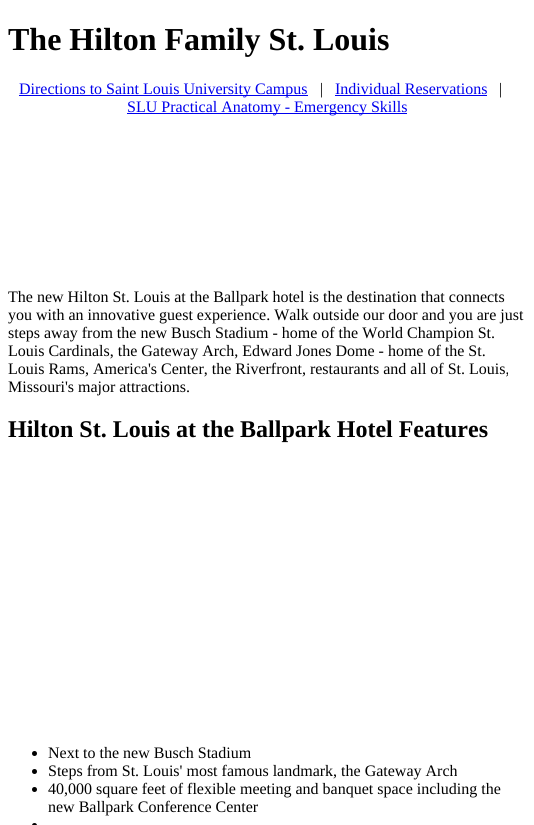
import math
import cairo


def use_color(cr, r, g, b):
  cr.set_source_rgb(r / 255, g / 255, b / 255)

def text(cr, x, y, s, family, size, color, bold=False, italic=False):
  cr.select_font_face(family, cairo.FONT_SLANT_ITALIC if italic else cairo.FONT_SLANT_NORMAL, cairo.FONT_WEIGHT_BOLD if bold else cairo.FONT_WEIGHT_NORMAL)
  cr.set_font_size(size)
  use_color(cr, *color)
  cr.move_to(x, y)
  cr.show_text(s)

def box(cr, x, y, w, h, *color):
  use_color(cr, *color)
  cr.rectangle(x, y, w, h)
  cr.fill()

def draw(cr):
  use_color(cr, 255, 255, 255)
  cr.paint()
  box(cr, 19, 95, 289, 1, 0, 0, 238)
  box(cr, 335, 95, 152, 1, 0, 0, 238)
  box(cr, 127, 113, 280, 1, 0, 0, 238)
  use_color(cr, 0, 0, 0)
  cr.arc(34.5, 753.5, 2.5, 0, 2 * math.pi)
  cr.fill()
  cr.arc(34.5, 771.5, 2.5, 0, 2 * math.pi)
  cr.fill()
  cr.arc(34.5, 789.5, 2.5, 0, 2 * math.pi)
  cr.fill()
  cr.arc(34.5, 825.5, 2.5, 0, 2 * math.pi)
  cr.fill()
  text(cr, 8, 50, "The Hilton Family St. Louis", "Liberation Serif", 32, (0, 0, 0), bold=True)
  text(cr, 19, 94, "Directions to Saint Louis University Campus", "Liberation Serif", 16, (0, 0, 238))
  text(cr, 320, 94, "|", "Liberation Serif", 16, (0, 0, 0))
  text(cr, 335, 94, "Individual Reservations", "Liberation Serif", 16, (0, 0, 238))
  text(cr, 499, 94, "|", "Liberation Serif", 16, (0, 0, 0))
  text(cr, 127, 112, "SLU Practical Anatomy - Emergency Skills", "Liberation Serif", 16, (0, 0, 238))
  text(cr, 8, 302, "The new Hilton St. Louis at the Ballpark hotel is the destination that connects", "Liberation Serif", 16, (0, 0, 0))
  text(cr, 8, 320, "you with an innovative guest experience. Walk outside our door and you are just", "Liberation Serif", 16, (0, 0, 0))
  text(cr, 8, 338, "steps away from the new Busch Stadium - home of the World Champion St.", "Liberation Serif", 16, (0, 0, 0))
  text(cr, 8, 356, "Louis Cardinals, the Gateway Arch, Edward Jones Dome - home of the St.", "Liberation Serif", 16, (0, 0, 0))
  text(cr, 8, 374, "Louis Rams, America's Center, the Riverfront, restaurants and all of St. Louis,", "Liberation Serif", 16, (0, 0, 0))
  text(cr, 8, 392, "Missouri's major attractions.", "Liberation Serif", 16, (0, 0, 0))
  text(cr, 8, 437, "Hilton St. Louis at the Ballpark Hotel Features", "Liberation Serif", 24, (0, 0, 0), bold=True)
  text(cr, 48, 758, "Next to the new Busch Stadium", "Liberation Serif", 16, (0, 0, 0))
  text(cr, 48, 776, "Steps from St. Louis' most famous landmark, the Gateway Arch", "Liberation Serif", 16, (0, 0, 0))
  text(cr, 48, 794, "40,000 square feet of flexible meeting and banquet space including the", "Liberation Serif", 16, (0, 0, 0))
  text(cr, 48, 812, "new Ballpark Conference Center", "Liberation Serif", 16, (0, 0, 0))


surface = cairo.ImageSurface(cairo.FORMAT_RGB24, 534, 825)
cr = cairo.Context(surface)
options = cairo.FontOptions()
options.set_hint_metrics(cairo.HINT_METRICS_OFF)
options.set_hint_style(cairo.HINT_STYLE_NONE)
cr.set_font_options(options)
cr.set_miter_limit(4)
draw(cr)
surface.write_to_png("out.png")
